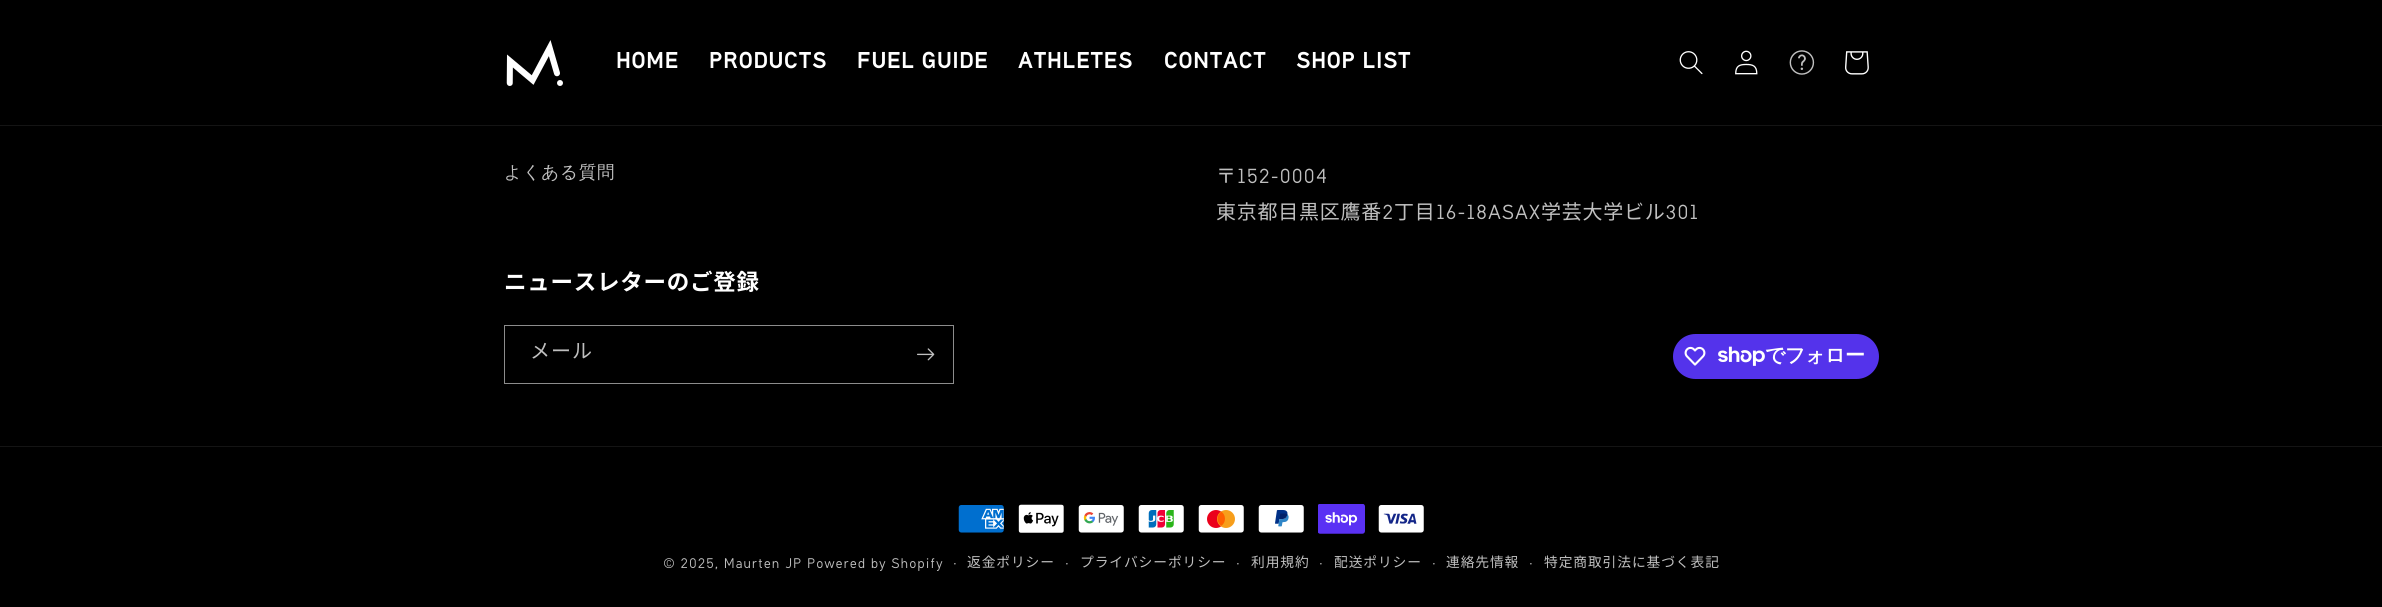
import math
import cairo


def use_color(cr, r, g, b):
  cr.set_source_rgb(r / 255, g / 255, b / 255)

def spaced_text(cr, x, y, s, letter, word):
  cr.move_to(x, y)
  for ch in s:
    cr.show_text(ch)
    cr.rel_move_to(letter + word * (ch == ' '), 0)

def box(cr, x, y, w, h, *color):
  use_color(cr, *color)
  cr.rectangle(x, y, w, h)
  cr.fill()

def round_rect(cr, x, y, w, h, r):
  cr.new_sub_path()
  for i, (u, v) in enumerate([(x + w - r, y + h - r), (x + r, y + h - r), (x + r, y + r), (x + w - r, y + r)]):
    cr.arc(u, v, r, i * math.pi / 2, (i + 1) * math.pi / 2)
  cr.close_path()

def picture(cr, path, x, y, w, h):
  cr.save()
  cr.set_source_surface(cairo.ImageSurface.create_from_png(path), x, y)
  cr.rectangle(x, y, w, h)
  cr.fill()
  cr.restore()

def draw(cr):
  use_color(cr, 0, 0, 0)
  cr.paint()
  box(cr, 0, 125, 2382, 1, 20, 20, 20)
  picture(cr, "img_01.png", 506, 40, 57, 46)
  picture(cr, "img_02.png", 1679, 51, 24, 24)
  picture(cr, "img_03.png", 1735, 50, 23, 25)
  picture(cr, "img_04.png", 1789, 50, 26, 25)
  picture(cr, "img_05.png", 1845, 51, 24, 24)
  cr.rectangle(504.5, 325.5, 449, 58)
  use_color(cr, 140, 140, 140)
  cr.set_line_width(1)
  cr.stroke()
  picture(cr, "img_06.png", 917, 348, 18, 13)
  use_color(cr, 84, 51, 235)
  round_rect(cr, 1673, 334, 206, 45, 22.5)
  cr.fill()
  picture(cr, "img_07.png", 1684, 346, 22, 20)
  picture(cr, "img_08.png", 1718, 346, 47, 20)
  box(cr, 0, 446, 2382, 1, 20, 20, 20)
  picture(cr, "img_09.png", 958, 505, 46, 28)
  picture(cr, "img_10.png", 1018, 504, 46, 29)
  picture(cr, "img_11.png", 1078, 505, 46, 28)
  picture(cr, "img_12.png", 1138, 505, 46, 28)
  picture(cr, "img_13.png", 1198, 505, 46, 28)
  picture(cr, "img_14.png", 1258, 505, 46, 28)
  picture(cr, "img_15.png", 1318, 504, 47, 30)
  picture(cr, "img_16.png", 1378, 505, 46, 28)
  cr.select_font_face("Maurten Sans", cairo.FONT_SLANT_NORMAL, cairo.FONT_WEIGHT_BOLD)
  cr.set_font_size(22.5)
  use_color(cr, 255, 255, 255)
  spaced_text(cr, 616, 68, "HOME", 0.75, 0)
  spaced_text(cr, 709, 68, "PRODUCTS", 0.75, 0)
  spaced_text(cr, 857, 68, "FUEL GUIDE", 0.75, 0)
  spaced_text(cr, 1018, 68, "ATHLETES", 0.75, 0)
  spaced_text(cr, 1164, 68, "CONTACT", 0.75, 0)
  spaced_text(cr, 1296, 68, "SHOP LIST", 0.75, 0)
  cr.select_font_face("WenQuanYi Zen Hei Medium")
  cr.set_font_size(17.5)
  use_color(cr, 191, 191, 191)
  spaced_text(cr, 504, 178, "よくある質問", 0.75, 0)
  cr.select_font_face("Noto Sans JP")
  cr.set_font_size(20)
  spaced_text(cr, 1216, 183, "〒", 0.75, 0)
  cr.select_font_face("Maurten Sans")
  spaced_text(cr, 1237, 183, "152-0004", 0.75, 0)
  cr.select_font_face("Noto Sans JP")
  spaced_text(cr, 1216, 219, "東京都目黒区鷹番", 0.75, 0)
  cr.select_font_face("Maurten Sans")
  spaced_text(cr, 1382, 219, "2", 0.75, 0)
  cr.select_font_face("Noto Sans JP")
  spaced_text(cr, 1394, 219, "丁目", 0.75, 0)
  cr.select_font_face("Maurten Sans")
  spaced_text(cr, 1436, 219, "16-18ASAX", 0.75, 0)
  cr.select_font_face("Noto Sans JP")
  spaced_text(cr, 1541, 219, "学芸大学ビル", 0.75, 0)
  cr.select_font_face("Maurten Sans")
  spaced_text(cr, 1665, 219, "301", 0.75, 0)
  cr.select_font_face("Noto Sans JP", cairo.FONT_SLANT_NORMAL, cairo.FONT_WEIGHT_BOLD)
  cr.set_font_size(22.5)
  use_color(cr, 255, 255, 255)
  spaced_text(cr, 504, 290, "ニュースレターのご登録", 0.75, 0)
  cr.select_font_face("Noto Sans JP")
  cr.set_font_size(20)
  use_color(cr, 191, 191, 191)
  spaced_text(cr, 530, 358, "メール", 1, 0)
  cr.select_font_face("WenQuanYi Zen Hei", cairo.FONT_SLANT_NORMAL, cairo.FONT_WEIGHT_BOLD)
  use_color(cr, 255, 255, 255)
  spaced_text(cr, 1765, 362, "でフォロー", -0.5, 0)
  cr.select_font_face("Maurten Sans")
  cr.set_font_size(13.75)
  use_color(cr, 191, 191, 191)
  spaced_text(cr, 663, 568, "© 2025, Maurten JP", 0.9, 0)
  spaced_text(cr, 807, 568, "Powered by Shopify", 0.9, 0)
  cr.set_font_size(15)
  spaced_text(cr, 953, 568, "·", 0.9, 0)
  cr.select_font_face("Noto Sans JP")
  cr.set_font_size(13.75)
  spaced_text(cr, 967, 567, "返金ポリシー", 0.9, 0)
  cr.select_font_face("Maurten Sans")
  cr.set_font_size(15)
  spaced_text(cr, 1065, 568, "·", 0.9, 0)
  cr.select_font_face("Noto Sans JP")
  cr.set_font_size(13.75)
  spaced_text(cr, 1080, 567, "プライバシーポリシー", 0.9, 0)
  cr.select_font_face("Maurten Sans")
  cr.set_font_size(15)
  spaced_text(cr, 1236, 568, "·", 0.9, 0)
  cr.select_font_face("Noto Sans JP")
  cr.set_font_size(13.75)
  spaced_text(cr, 1251, 567, "利用規約", 0.9, 0)
  cr.select_font_face("Maurten Sans")
  cr.set_font_size(15)
  spaced_text(cr, 1319, 568, "·", 0.9, 0)
  cr.select_font_face("Noto Sans JP")
  cr.set_font_size(13.75)
  spaced_text(cr, 1334, 567, "配送ポリシー", 0.9, 0)
  cr.select_font_face("Maurten Sans")
  cr.set_font_size(15)
  spaced_text(cr, 1432, 568, "·", 0.9, 0)
  cr.select_font_face("Noto Sans JP")
  cr.set_font_size(13.75)
  spaced_text(cr, 1446, 567, "連絡先情報", 0.9, 0)
  cr.select_font_face("Maurten Sans")
  cr.set_font_size(15)
  spaced_text(cr, 1529, 568, "·", 0.9, 0)
  cr.select_font_face("Noto Sans JP")
  cr.set_font_size(13.75)
  spaced_text(cr, 1544, 567, "特定商取引法に基づく表記", 0.9, 0)


surface = cairo.ImageSurface(cairo.FORMAT_RGB24, 2382, 607)
cr = cairo.Context(surface)
options = cairo.FontOptions()
options.set_hint_metrics(cairo.HINT_METRICS_OFF)
options.set_hint_style(cairo.HINT_STYLE_NONE)
cr.set_font_options(options)
cr.set_miter_limit(4)
draw(cr)
surface.write_to_png("out.png")
